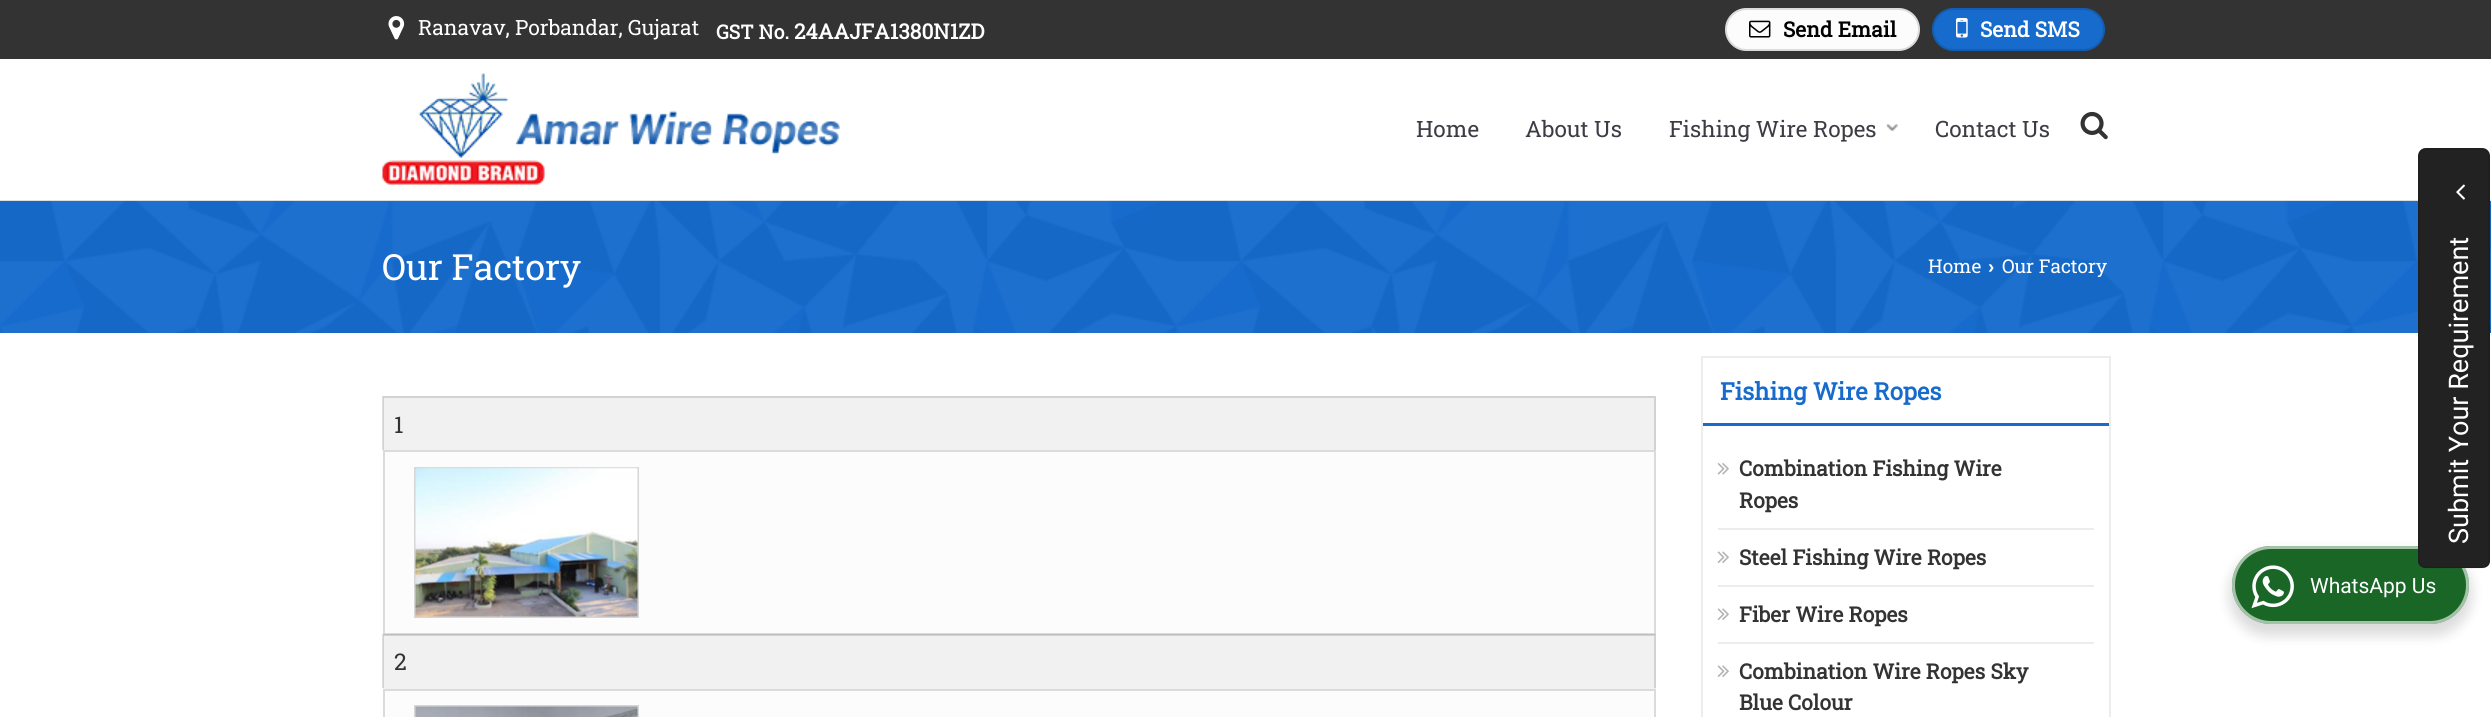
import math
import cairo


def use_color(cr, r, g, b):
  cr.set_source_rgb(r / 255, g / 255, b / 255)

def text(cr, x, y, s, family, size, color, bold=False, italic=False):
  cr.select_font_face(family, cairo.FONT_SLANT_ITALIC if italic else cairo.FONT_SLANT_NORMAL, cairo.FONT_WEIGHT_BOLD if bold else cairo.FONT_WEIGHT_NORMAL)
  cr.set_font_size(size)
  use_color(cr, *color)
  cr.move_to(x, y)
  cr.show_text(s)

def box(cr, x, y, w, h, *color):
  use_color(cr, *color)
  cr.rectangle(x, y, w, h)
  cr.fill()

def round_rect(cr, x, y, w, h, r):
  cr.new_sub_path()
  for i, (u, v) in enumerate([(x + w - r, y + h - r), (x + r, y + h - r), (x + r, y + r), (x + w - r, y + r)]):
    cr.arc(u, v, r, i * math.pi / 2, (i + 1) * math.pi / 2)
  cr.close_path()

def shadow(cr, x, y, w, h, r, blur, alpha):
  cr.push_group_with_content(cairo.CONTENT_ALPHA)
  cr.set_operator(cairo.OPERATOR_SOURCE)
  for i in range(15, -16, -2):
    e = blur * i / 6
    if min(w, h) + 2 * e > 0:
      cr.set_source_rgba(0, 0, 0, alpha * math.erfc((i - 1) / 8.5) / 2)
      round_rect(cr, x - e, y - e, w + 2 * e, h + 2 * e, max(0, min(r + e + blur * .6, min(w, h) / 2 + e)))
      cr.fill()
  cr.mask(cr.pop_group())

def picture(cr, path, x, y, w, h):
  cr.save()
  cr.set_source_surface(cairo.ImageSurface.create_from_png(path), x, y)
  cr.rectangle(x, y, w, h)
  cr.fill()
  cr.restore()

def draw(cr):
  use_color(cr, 255, 255, 255)
  cr.paint()
  box(cr, 0, 0, 2491, 59, 51, 51, 51)
  picture(cr, "img_01.png", 388, 16, 17, 24)
  use_color(cr, 252, 252, 252)
  round_rect(cr, 1725, 8, 195, 43, 21.5)
  cr.fill()
  round_rect(cr, 1726, 9, 193, 41, 20.5)
  cr.set_source_rgba(0, 0, 0, 0.13)
  cr.stroke()
  picture(cr, "img_02.png", 1749, 20, 22, 18)
  use_color(cr, 22, 107, 204)
  round_rect(cr, 1932, 8, 173, 43, 21.5)
  cr.fill()
  round_rect(cr, 1933, 9, 171, 41, 20.5)
  cr.set_source_rgba(0, 0, 0, 0.13)
  cr.stroke()
  picture(cr, "img_03.png", 1956, 18, 12, 20)
  box(cr, 0, 200, 2491, 1, 222, 222, 222)
  picture(cr, "img_04.png", 382, 73, 458, 112)
  picture(cr, "img_05.png", 1886, 124, 12, 8)
  picture(cr, "img_06.png", 2080, 111, 28, 29)
  box(cr, 0, 201, 2491, 132, 22, 107, 204)
  picture(cr, "img_07.png", 0, 201, 2491, 132)
  box(cr, 383, 396, 1273, 54, 241, 241, 241)
  use_color(cr, 210, 210, 210)
  cr.new_path()
  cr.move_to(382, 396)
  cr.line_to(1656, 396)
  cr.line_to(1654, 398)
  cr.line_to(384, 398)
  cr.close_path()
  cr.fill()
  cr.set_source_rgba(0, 0, 0, 0.13)
  cr.new_path()
  cr.move_to(1656, 396)
  cr.line_to(1656, 450)
  cr.line_to(1654, 450)
  cr.line_to(1654, 398)
  cr.close_path()
  cr.fill()
  cr.new_path()
  cr.move_to(382, 450)
  cr.line_to(382, 396)
  cr.line_to(384, 398)
  cr.line_to(384, 450)
  cr.close_path()
  cr.fill()
  use_color(cr, 252, 252, 252)
  cr.rectangle(384, 451, 1271, 183)
  cr.fill_preserve()
  use_color(cr, 219, 219, 219)
  cr.stroke()
  cr.rectangle(415, 468, 223, 149)
  use_color(cr, 214, 214, 214)
  cr.stroke()
  picture(cr, "img_08.png", 415, 467, 223, 150)
  box(cr, 383, 635, 1273, 54, 241, 241, 241)
  cr.set_source_rgba(0, 0, 0, 0.13)
  cr.new_path()
  cr.move_to(382, 634)
  cr.line_to(1656, 634)
  cr.line_to(1654, 636)
  cr.line_to(384, 636)
  cr.close_path()
  cr.fill()
  cr.new_path()
  cr.move_to(1656, 634)
  cr.line_to(1656, 688)
  cr.line_to(1654, 688)
  cr.line_to(1654, 636)
  cr.close_path()
  cr.fill()
  cr.new_path()
  cr.move_to(382, 688)
  cr.line_to(382, 634)
  cr.line_to(384, 636)
  cr.line_to(384, 688)
  cr.close_path()
  cr.fill()
  use_color(cr, 252, 252, 252)
  cr.rectangle(384, 690, 1271, 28)
  cr.fill_preserve()
  use_color(cr, 219, 219, 219)
  cr.stroke()
  cr.rectangle(415, 706, 223, 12)
  use_color(cr, 214, 214, 214)
  cr.stroke()
  picture(cr, "img_09.png", 415, 706, 223, 11)
  cr.rectangle(1702, 357, 408, 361)
  use_color(cr, 237, 237, 237)
  cr.stroke()
  box(cr, 1703, 423, 406, 3, 22, 107, 204)
  box(cr, 1718, 528, 376, 2, 237, 237, 237)
  picture(cr, "img_10.png", 1717, 463, 12, 12)
  box(cr, 1718, 585, 376, 2, 237, 237, 237)
  picture(cr, "img_11.png", 1717, 551, 12, 12)
  box(cr, 1718, 642, 376, 2, 237, 237, 237)
  picture(cr, "img_11.png", 1717, 608, 12, 12)
  picture(cr, "img_11.png", 1717, 665, 12, 12)
  use_color(cr, 0, 0, 0)
  shadow(cr, 2229, 552, 243, 84, 42, 6, 0.14)
  use_color(cr, 25, 102, 38)
  round_rect(cr, 2232, 546, 237, 78, 39)
  cr.fill()
  round_rect(cr, 2233.5, 547.5, 234, 75, 37.5)
  cr.set_source_rgba(1, 1, 1, 0.6)
  cr.set_line_width(3)
  cr.stroke()
  use_color(cr, 34, 34, 34)
  cr.new_path()
  cr.move_to(2418, 561)
  cr.line_to(2418, 156)
  cr.curve_to(2418, 152, 2421, 148, 2426, 148)
  cr.line_to(2482, 148)
  cr.curve_to(2487, 148, 2490, 152, 2490, 156)
  cr.line_to(2490, 561)
  cr.curve_to(2490, 565, 2487, 568, 2482, 568)
  cr.line_to(2426, 568)
  cr.curve_to(2421, 568, 2418, 565, 2418, 561)
  cr.close_path()
  cr.fill()
  cr.new_path()
  cr.move_to(2419, 561)
  cr.line_to(2419, 156)
  cr.curve_to(2419, 152, 2422, 149, 2425.5, 149)
  cr.line_to(2482.5, 149)
  cr.curve_to(2486, 149, 2489, 152, 2489, 156)
  cr.line_to(2489, 561)
  cr.curve_to(2489, 564.5, 2486, 567.5, 2482.5, 567.5)
  cr.line_to(2425.5, 567.5)
  cr.curve_to(2422, 567.5, 2419, 564.5, 2419, 561)
  cr.close_path()
  cr.set_source_rgba(0, 0, 0, 0.13)
  cr.set_line_width(1.5)
  cr.stroke()
  picture(cr, "img_12.png", 2456, 184, 9, 16)
  picture(cr, "img_13.png", 2251, 565, 43, 44)
  text(cr, 418, 35, "Ranavav, Porbandar, Gujarat", "Roboto Slab", 21, (255, 255, 255))
  text(cr, 716, 39, "GST No.", "Roboto Slab", 19.5, (255, 255, 255), bold=True)
  text(cr, 794, 39, "24AAJFA1380N1ZD", "Roboto Slab", 21, (255, 255, 255), bold=True)
  text(cr, 1783, 37, "Send Email", "Roboto Slab", 21, (0, 0, 0), bold=True)
  text(cr, 1980, 37, "Send SMS", "Roboto Slab", 21, (255, 255, 255), bold=True)
  text(cr, 1416, 137, "Home", "Roboto Slab", 22.5, (60, 60, 68))
  text(cr, 1525, 137, "About Us", "Roboto Slab", 22.5, (60, 60, 68))
  text(cr, 1669, 137, "Fishing Wire Ropes", "Roboto Slab", 22.5, (60, 60, 68))
  text(cr, 1935, 137, "Contact Us", "Roboto Slab", 22.5, (60, 60, 68))
  text(cr, 382, 280, "Our Factory", "Roboto Slab", 36, (255, 255, 255))
  text(cr, 1928, 273, "Home", "Roboto Slab", 19, (255, 255, 255))
  text(cr, 1988, 273, "›", "Liberation Sans", 19, (255, 255, 255), bold=True)
  text(cr, 2002, 273, "Our Factory", "Roboto Slab", 19, (255, 255, 255))
  text(cr, 394, 433, "1", "Roboto Slab", 23, (51, 51, 51))
  text(cr, 394, 670, "2", "Roboto Slab", 23, (51, 51, 51))
  text(cr, 1720, 400, "Fishing Wire Ropes", "Roboto Slab", 24, (22, 107, 204), bold=True)
  text(cr, 1739, 476, "Combination Fishing Wire", "Roboto Slab", 21, (51, 51, 51), bold=True)
  text(cr, 1739, 508, "Ropes", "Roboto Slab", 21, (51, 51, 51), bold=True)
  text(cr, 1739, 565, "Steel Fishing Wire Ropes", "Roboto Slab", 21, (51, 51, 51), bold=True)
  text(cr, 1739, 622, "Fiber Wire Ropes", "Roboto Slab", 21, (51, 51, 51), bold=True)
  text(cr, 1739, 679, "Combination Wire Ropes Sky", "Roboto Slab", 21, (51, 51, 51), bold=True)
  text(cr, 1739, 710, "Blue Colour", "Roboto Slab", 21, (51, 51, 51), bold=True)
  cr.save()
  cr.translate(2468, 544)
  cr.rotate(-90 * math.pi / 180)
  text(cr, 0, 0, "Submit Your Requirement", "Roboto", 27, (255, 255, 255))
  cr.restore()
  text(cr, 2310, 593, "WhatsApp Us", "Roboto", 21, (255, 255, 255))


surface = cairo.ImageSurface(cairo.FORMAT_RGB24, 2491, 717)
cr = cairo.Context(surface)
options = cairo.FontOptions()
options.set_hint_metrics(cairo.HINT_METRICS_OFF)
options.set_hint_style(cairo.HINT_STYLE_NONE)
cr.set_font_options(options)
cr.set_miter_limit(4)
draw(cr)
surface.write_to_png("out.png")
